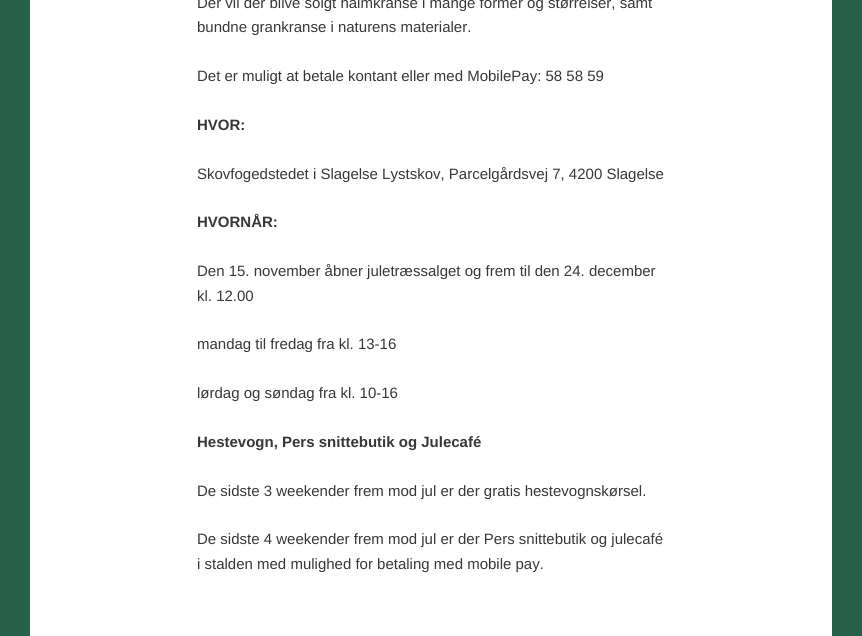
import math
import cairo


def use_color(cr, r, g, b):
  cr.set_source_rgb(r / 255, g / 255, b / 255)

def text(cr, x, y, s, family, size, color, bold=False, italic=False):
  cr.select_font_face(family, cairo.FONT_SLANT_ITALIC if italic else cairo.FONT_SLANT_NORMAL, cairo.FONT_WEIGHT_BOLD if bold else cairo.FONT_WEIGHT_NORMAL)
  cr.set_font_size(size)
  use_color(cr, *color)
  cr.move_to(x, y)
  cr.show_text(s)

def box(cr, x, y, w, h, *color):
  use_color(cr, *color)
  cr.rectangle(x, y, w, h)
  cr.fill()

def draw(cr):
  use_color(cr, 39, 96, 73)
  cr.paint()
  box(cr, 30, 0, 802, 636, 255, 255, 255)
  text(cr, 197, 8, "Der vil der blive solgt halmkranse i mange former og størrelser, samt", "Liberation Sans", 15, (55, 55, 55))
  text(cr, 197, 32, "bundne grankranse i naturens materialer.", "Liberation Sans", 15, (55, 55, 55))
  text(cr, 197, 81, "Det er muligt at betale kontant eller med MobilePay: 58 58 59", "Liberation Sans", 15, (55, 55, 55))
  text(cr, 197, 130, "HVOR:", "Liberation Sans", 15, (55, 55, 55), bold=True)
  text(cr, 197, 179, "Skovfogedstedet i Slagelse Lystskov, Parcelgårdsvej 7, 4200 Slagelse", "Liberation Sans", 15, (55, 55, 55))
  text(cr, 197, 227, "HVORNÅR:", "Liberation Sans", 15, (55, 55, 55), bold=True)
  text(cr, 197, 276, "Den 15. november åbner juletræssalget og frem til den 24. december", "Liberation Sans", 15, (55, 55, 55))
  text(cr, 197, 301, "kl. 12.00", "Liberation Sans", 15, (55, 55, 55))
  text(cr, 197, 349, "mandag til fredag fra kl. 13-16", "Liberation Sans", 15, (55, 55, 55))
  text(cr, 197, 398, "lørdag og søndag fra kl. 10-16", "Liberation Sans", 15, (55, 55, 55))
  text(cr, 197, 447, "Hestevogn, Pers snittebutik og Julecafé", "Liberation Sans", 15, (55, 55, 55), bold=True)
  text(cr, 197, 496, "De sidste 3 weekender frem mod jul er der gratis hestevognskørsel.", "Liberation Sans", 15, (55, 55, 55))
  text(cr, 197, 544, "De sidste 4 weekender frem mod jul er der Pers snittebutik og julecafé", "Liberation Sans", 15, (55, 55, 55))
  text(cr, 197, 569, "i stalden med mulighed for betaling med mobile pay.", "Liberation Sans", 15, (55, 55, 55))


surface = cairo.ImageSurface(cairo.FORMAT_RGB24, 862, 636)
cr = cairo.Context(surface)
options = cairo.FontOptions()
options.set_hint_metrics(cairo.HINT_METRICS_OFF)
options.set_hint_style(cairo.HINT_STYLE_NONE)
cr.set_font_options(options)
cr.set_miter_limit(4)
draw(cr)
surface.write_to_png("out.png")
